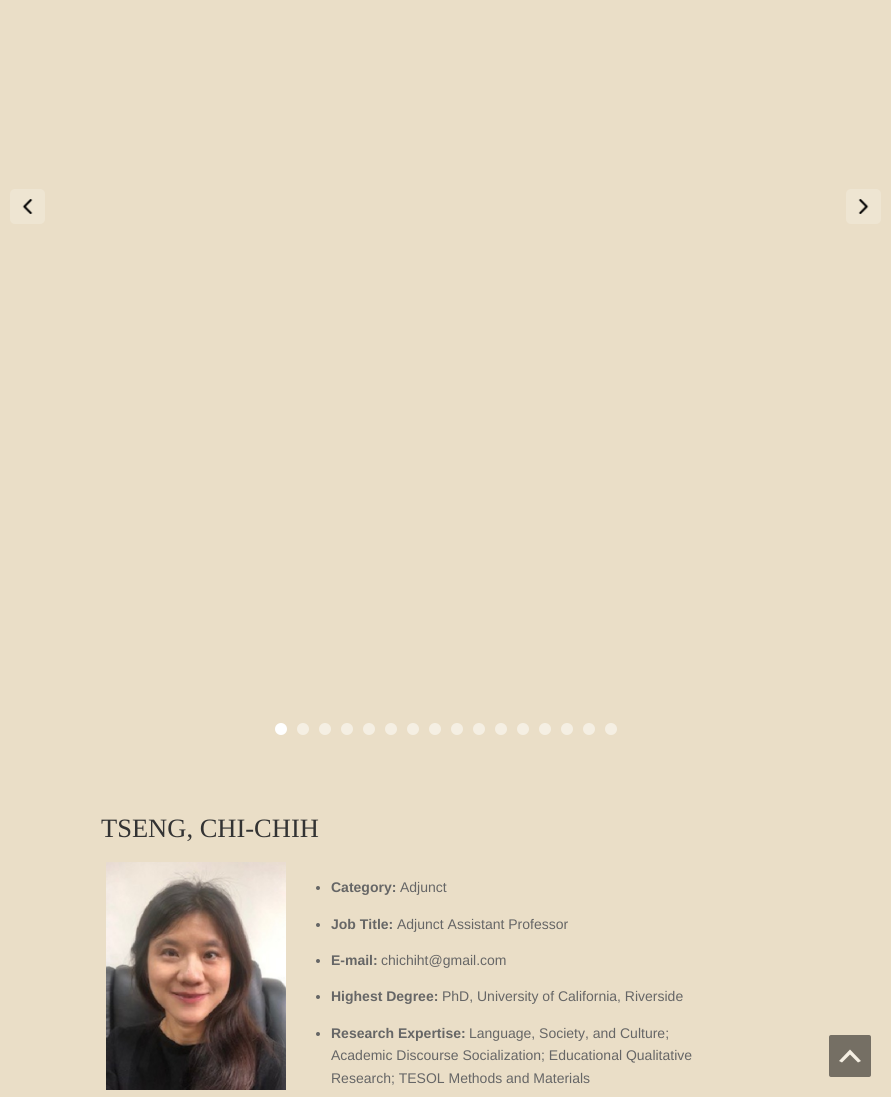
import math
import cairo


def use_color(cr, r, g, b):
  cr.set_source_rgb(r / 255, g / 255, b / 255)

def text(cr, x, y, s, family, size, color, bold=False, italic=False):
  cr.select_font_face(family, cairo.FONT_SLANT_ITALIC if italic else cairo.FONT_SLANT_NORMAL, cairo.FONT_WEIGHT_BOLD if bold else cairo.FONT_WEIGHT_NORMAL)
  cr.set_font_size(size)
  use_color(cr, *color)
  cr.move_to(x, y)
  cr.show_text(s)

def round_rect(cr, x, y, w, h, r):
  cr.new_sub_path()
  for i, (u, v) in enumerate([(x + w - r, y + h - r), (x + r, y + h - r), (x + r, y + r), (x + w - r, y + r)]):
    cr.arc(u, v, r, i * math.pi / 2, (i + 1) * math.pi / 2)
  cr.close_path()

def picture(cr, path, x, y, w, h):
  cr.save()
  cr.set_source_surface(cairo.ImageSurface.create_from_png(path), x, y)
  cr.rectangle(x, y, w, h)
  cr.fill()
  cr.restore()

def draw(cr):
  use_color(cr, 234, 222, 199)
  cr.paint()
  use_color(cr, 238, 229, 210)
  round_rect(cr, 10, 189, 35, 35, 5)
  cr.fill()
  picture(cr, "img_01.png", 22, 199, 11, 15)
  round_rect(cr, 846, 189, 35, 35, 5)
  cr.fill()
  picture(cr, "img_02.png", 858, 199, 11, 15)
  use_color(cr, 255, 255, 255)
  cr.arc(281, 729, 6, 0, 2 * math.pi)
  cr.fill()
  use_color(cr, 245, 239, 227)
  cr.arc(303, 729, 6, 0, 2 * math.pi)
  cr.fill()
  cr.arc(325, 729, 6, 0, 2 * math.pi)
  cr.fill()
  cr.arc(347, 729, 6, 0, 2 * math.pi)
  cr.fill()
  cr.arc(369, 729, 6, 0, 2 * math.pi)
  cr.fill()
  cr.arc(391, 729, 6, 0, 2 * math.pi)
  cr.fill()
  cr.arc(413, 729, 6, 0, 2 * math.pi)
  cr.fill()
  cr.arc(435, 729, 6, 0, 2 * math.pi)
  cr.fill()
  cr.arc(457, 729, 6, 0, 2 * math.pi)
  cr.fill()
  cr.arc(479, 729, 6, 0, 2 * math.pi)
  cr.fill()
  cr.arc(501, 729, 6, 0, 2 * math.pi)
  cr.fill()
  cr.arc(523, 729, 6, 0, 2 * math.pi)
  cr.fill()
  cr.arc(545, 729, 6, 0, 2 * math.pi)
  cr.fill()
  cr.arc(567, 729, 6, 0, 2 * math.pi)
  cr.fill()
  cr.arc(589, 729, 6, 0, 2 * math.pi)
  cr.fill()
  cr.arc(611, 729, 6, 0, 2 * math.pi)
  cr.fill()
  picture(cr, "img_03.png", 106, 862, 180, 228)
  use_color(cr, 102, 102, 102)
  cr.arc(318, 888, 2, 0, 2 * math.pi)
  cr.fill()
  cr.arc(318, 925, 2, 0, 2 * math.pi)
  cr.fill()
  cr.arc(318, 961, 2, 0, 2 * math.pi)
  cr.fill()
  cr.arc(318, 997, 2, 0, 2 * math.pi)
  cr.fill()
  cr.arc(318, 1034, 2, 0, 2 * math.pi)
  cr.fill()
  use_color(cr, 117, 111, 100)
  round_rect(cr, 829, 1035, 42, 42, 2)
  cr.fill()
  use_color(cr, 245, 239, 227)
  cr.new_path()
  cr.move_to(858, 1062.5)
  cr.line_to(850, 1054.5)
  cr.line_to(842, 1062.5)
  cr.line_to(839, 1061)
  cr.line_to(850, 1049.5)
  cr.line_to(861, 1061)
  cr.close_path()
  cr.fill()
  text(cr, 101, 837, "TSENG, CHI-CHIH", "Liberation Serif", 26.5, (51, 51, 51))
  text(cr, 331, 892, "Category:", "Liberation Sans", 14, (102, 102, 102), bold=True)
  text(cr, 400, 892, "Adjunct", "Liberation Sans", 14, (102, 102, 102))
  text(cr, 331, 929, "Job Title:", "Liberation Sans", 14, (102, 102, 102), bold=True)
  text(cr, 397, 929, "Adjunct Assistant Professor", "Liberation Sans", 14, (102, 102, 102))
  text(cr, 331, 965, "E-mail:", "Liberation Sans", 14, (102, 102, 102), bold=True)
  text(cr, 381, 965, "chichiht@gmail.com", "Liberation Sans", 14, (102, 102, 102))
  text(cr, 331, 1001, "Highest Degree:", "Liberation Sans", 14, (102, 102, 102), bold=True)
  text(cr, 442, 1001, "PhD, University of California, Riverside", "Liberation Sans", 14, (102, 102, 102))
  text(cr, 331, 1038, "Research Expertise:", "Liberation Sans", 14, (102, 102, 102), bold=True)
  text(cr, 469, 1038, "Language, Society, and Culture;", "Liberation Sans", 14, (102, 102, 102))
  text(cr, 331, 1060, "Academic Discourse Socialization; Educational Qualitative", "Liberation Sans", 14, (102, 102, 102))
  text(cr, 331, 1083, "Research; TESOL Methods and Materials", "Liberation Sans", 14, (102, 102, 102))


surface = cairo.ImageSurface(cairo.FORMAT_RGB24, 891, 1097)
cr = cairo.Context(surface)
options = cairo.FontOptions()
options.set_hint_metrics(cairo.HINT_METRICS_OFF)
options.set_hint_style(cairo.HINT_STYLE_NONE)
cr.set_font_options(options)
cr.set_miter_limit(4)
draw(cr)
surface.write_to_png("out.png")
